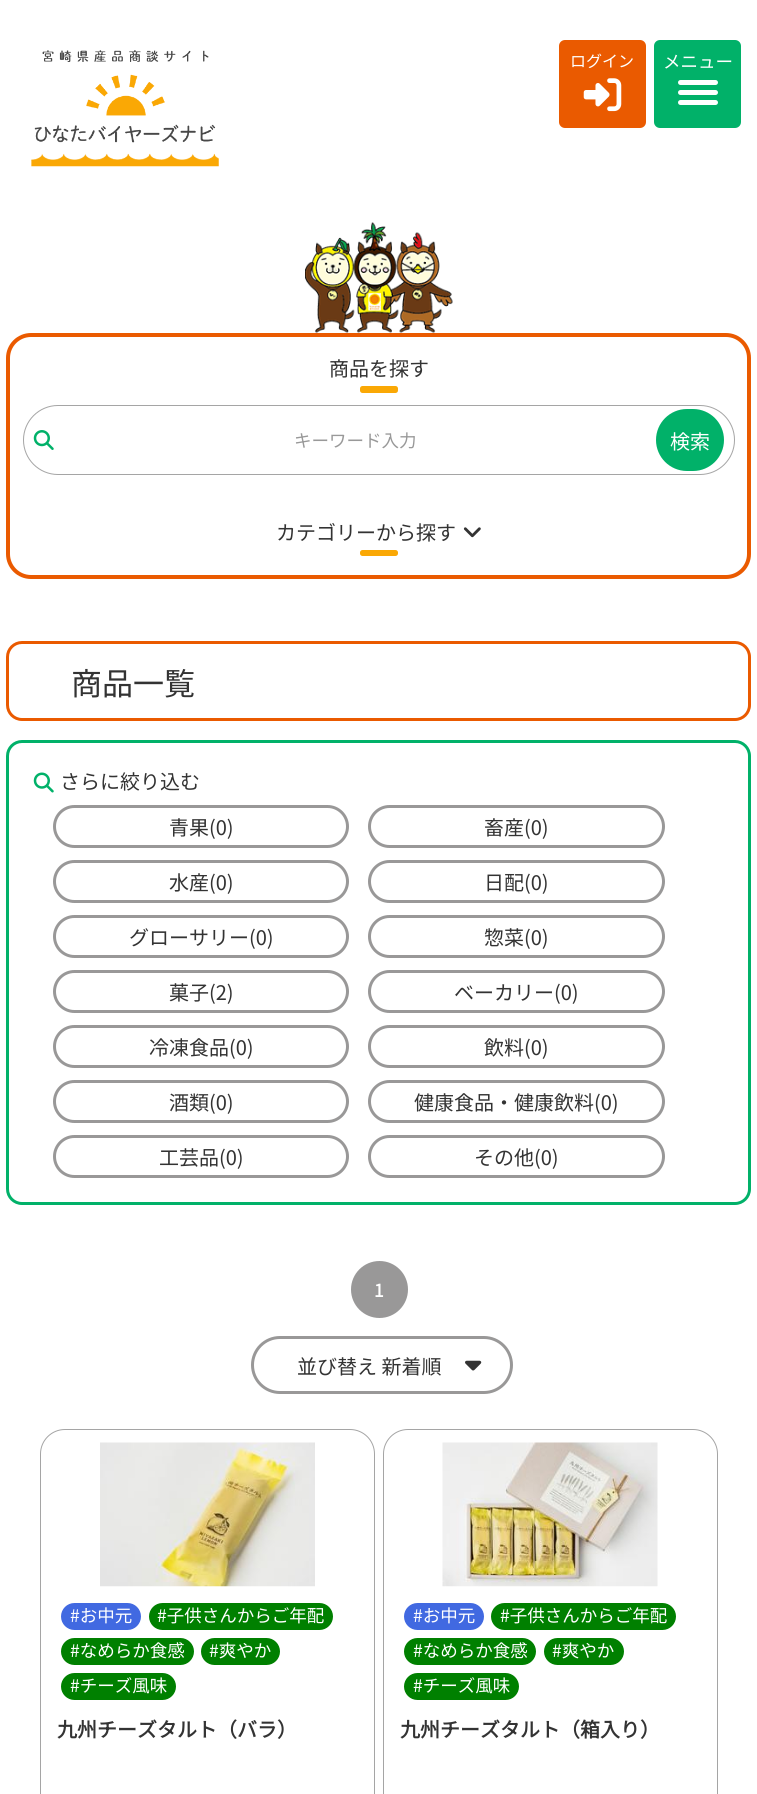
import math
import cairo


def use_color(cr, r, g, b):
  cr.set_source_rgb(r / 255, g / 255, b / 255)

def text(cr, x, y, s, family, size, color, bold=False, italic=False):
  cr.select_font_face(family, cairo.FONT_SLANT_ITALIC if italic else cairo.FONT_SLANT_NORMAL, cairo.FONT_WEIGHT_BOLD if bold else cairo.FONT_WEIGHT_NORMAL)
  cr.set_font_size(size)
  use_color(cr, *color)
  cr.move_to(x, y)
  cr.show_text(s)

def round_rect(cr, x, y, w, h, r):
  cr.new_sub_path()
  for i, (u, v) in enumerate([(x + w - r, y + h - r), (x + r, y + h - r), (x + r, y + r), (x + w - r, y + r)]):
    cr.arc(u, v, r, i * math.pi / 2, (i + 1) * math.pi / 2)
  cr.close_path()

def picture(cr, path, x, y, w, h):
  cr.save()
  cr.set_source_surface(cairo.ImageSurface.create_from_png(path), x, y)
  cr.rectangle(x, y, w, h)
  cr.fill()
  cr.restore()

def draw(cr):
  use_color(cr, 255, 255, 255)
  cr.paint()
  picture(cr, "img_01.png", 31, 50, 188, 117)
  use_color(cr, 234, 90, 0)
  round_rect(cr, 559, 40, 87, 88, 6)
  cr.fill()
  picture(cr, "img_02.png", 583, 78, 39, 34)
  use_color(cr, 1, 177, 105)
  round_rect(cr, 654, 40, 87, 88, 6)
  cr.fill()
  use_color(cr, 255, 255, 255)
  round_rect(cr, 678, 80, 40, 5, 2.5)
  cr.fill()
  round_rect(cr, 678, 90, 40, 5, 2.5)
  cr.fill()
  round_rect(cr, 678, 100, 40, 5, 2.5)
  cr.fill()
  picture(cr, "img_03.png", 305, 222, 148, 111)
  round_rect(cr, 8, 335, 741, 242, 23)
  use_color(cr, 234, 90, 0)
  cr.set_line_width(4)
  cr.stroke()
  use_color(cr, 250, 168, 5)
  round_rect(cr, 360, 386, 38, 7, 2.5)
  cr.fill()
  round_rect(cr, 23.5, 405.5, 711, 69, 34.5)
  use_color(cr, 165, 165, 165)
  cr.set_line_width(1)
  cr.stroke()
  picture(cr, "img_04.png", 33, 430, 21, 20)
  use_color(cr, 1, 177, 105)
  round_rect(cr, 656, 409, 68, 62, 31)
  cr.fill()
  picture(cr, "img_05.png", 463, 527, 18, 11)
  use_color(cr, 250, 168, 5)
  round_rect(cr, 360, 550, 38, 6, 2.5)
  cr.fill()
  round_rect(cr, 7.5, 642.5, 742, 77, 14.5)
  use_color(cr, 234, 90, 0)
  cr.set_line_width(3)
  cr.stroke()
  round_rect(cr, 7.5, 741.5, 742, 462, 14.5)
  use_color(cr, 1, 177, 105)
  cr.stroke()
  picture(cr, "img_06.png", 33, 772, 21, 21)
  round_rect(cr, 54.5, 806.5, 293, 40, 20)
  use_color(cr, 153, 152, 152)
  cr.stroke()
  round_rect(cr, 369.5, 806.5, 294, 40, 20)
  cr.stroke()
  round_rect(cr, 54.5, 861.5, 293, 40, 20)
  cr.stroke()
  round_rect(cr, 369.5, 861.5, 294, 40, 20)
  cr.stroke()
  round_rect(cr, 54.5, 916.5, 293, 40, 20)
  cr.stroke()
  round_rect(cr, 369.5, 916.5, 294, 40, 20)
  cr.stroke()
  round_rect(cr, 54.5, 971.5, 293, 40, 20)
  cr.stroke()
  round_rect(cr, 369.5, 971.5, 294, 40, 20)
  cr.stroke()
  round_rect(cr, 54.5, 1026.5, 293, 40, 20)
  cr.stroke()
  round_rect(cr, 369.5, 1026.5, 294, 40, 20)
  cr.stroke()
  round_rect(cr, 54.5, 1081.5, 293, 40, 20)
  cr.stroke()
  round_rect(cr, 369.5, 1081.5, 294, 40, 20)
  cr.stroke()
  round_rect(cr, 54.5, 1136.5, 293, 40, 20)
  cr.stroke()
  round_rect(cr, 369.5, 1136.5, 294, 40, 20)
  cr.stroke()
  cr.arc(379.5, 1289.5, 27, 0, 2 * math.pi)
  cr.fill_preserve()
  cr.stroke()
  round_rect(cr, 252.5, 1337.5, 259, 55, 27.5)
  cr.stroke()
  picture(cr, "img_07.png", 465, 1360, 17, 11)
  round_rect(cr, 40.5, 1429.5, 334, 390, 24.5)
  use_color(cr, 165, 165, 165)
  cr.set_line_width(1)
  cr.stroke()
  picture(cr, "img_08.png", 100, 1442, 215, 145)
  use_color(cr, 65, 105, 225)
  round_rect(cr, 61, 1603, 80, 27, 13.5)
  cr.fill()
  use_color(cr, 0, 128, 0)
  round_rect(cr, 149, 1603, 184, 27, 13.5)
  cr.fill()
  round_rect(cr, 61, 1638, 133, 27, 13.5)
  cr.fill()
  round_rect(cr, 201, 1638, 79, 27, 13.5)
  cr.fill()
  round_rect(cr, 61, 1673, 115, 27, 13.5)
  cr.fill()
  round_rect(cr, 383.5, 1429.5, 334, 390, 24.5)
  use_color(cr, 165, 165, 165)
  cr.stroke()
  picture(cr, "img_09.png", 442, 1442, 216, 145)
  use_color(cr, 65, 105, 225)
  round_rect(cr, 404, 1603, 80, 27, 13.5)
  cr.fill()
  use_color(cr, 0, 128, 0)
  round_rect(cr, 491, 1603, 185, 27, 13.5)
  cr.fill()
  round_rect(cr, 404, 1638, 132, 27, 13.5)
  cr.fill()
  round_rect(cr, 544, 1638, 80, 27, 13.5)
  cr.fill()
  round_rect(cr, 404, 1673, 115, 27, 13.5)
  cr.fill()
  text(cr, 570, 67, "ログイン", "Noto Sans JP Thin", 16, (255, 255, 255))
  text(cr, 663, 68, "メニュー", "Noto Sans JP Thin", 17.5, (255, 255, 255))
  text(cr, 329, 376, "商品を探す", "Noto Sans JP Thin", 20, (51, 51, 51))
  text(cr, 294, 447, "キーワード入力", "Noto Sans JP Thin", 17.5, (153, 153, 153))
  text(cr, 670, 449, "検索", "Noto Sans JP Thin", 20, (255, 255, 255))
  text(cr, 276, 540, "カテゴリーから探す", "Noto Sans JP Thin", 20, (51, 51, 51))
  text(cr, 71, 695, "商品一覧", "Noto Sans JP Thin", 31, (51, 51, 51))
  text(cr, 60, 789, "さらに絞り込む", "Noto Sans JP Thin", 20, (51, 51, 51))
  text(cr, 169, 835, "青果(0)", "Noto Sans JP Thin", 20, (51, 51, 51))
  text(cr, 484, 835, "畜産(0)", "Noto Sans JP Thin", 20, (51, 51, 51))
  text(cr, 169, 890, "水産(0)", "Noto Sans JP Thin", 20, (51, 51, 51))
  text(cr, 484, 890, "日配(0)", "Noto Sans JP Thin", 20, (51, 51, 51))
  text(cr, 129, 945, "グローサリー(0)", "Noto Sans JP Thin", 20, (51, 51, 51))
  text(cr, 484, 945, "惣菜(0)", "Noto Sans JP Thin", 20, (51, 51, 51))
  text(cr, 169, 1000, "菓子(2)", "Noto Sans JP Thin", 20, (51, 51, 51))
  text(cr, 454, 1000, "ベーカリー(0)", "Noto Sans JP Thin", 20, (51, 51, 51))
  text(cr, 149, 1055, "冷凍食品(0)", "Noto Sans JP Thin", 20, (51, 51, 51))
  text(cr, 484, 1055, "飲料(0)", "Noto Sans JP Thin", 20, (51, 51, 51))
  text(cr, 169, 1110, "酒類(0)", "Noto Sans JP Thin", 20, (51, 51, 51))
  text(cr, 414, 1110, "健康食品・健康飲料(0)", "Noto Sans JP Thin", 20, (51, 51, 51))
  text(cr, 159, 1165, "工芸品(0)", "Noto Sans JP Thin", 20, (51, 51, 51))
  text(cr, 474, 1165, "その他(0)", "Noto Sans JP Thin", 20, (51, 51, 51))
  text(cr, 374, 1297, "1", "Noto Sans JP", 17.5, (255, 255, 255), bold=True)
  text(cr, 297, 1374, "並び替え 新着順", "Noto Sans JP Thin", 20, (51, 51, 51))
  text(cr, 70, 1622, "#お中元", "Noto Sans JP Thin", 17.5, (255, 255, 255))
  text(cr, 157, 1622, "#子供さんからご年配", "Noto Sans JP Thin", 17.5, (255, 255, 255))
  text(cr, 70, 1657, "#なめらか食感", "Noto Sans JP Thin", 17.5, (255, 255, 255))
  text(cr, 209, 1657, "#爽やか", "Noto Sans JP Thin", 17.5, (255, 255, 255))
  text(cr, 70, 1692, "#チーズ風味", "Noto Sans JP Thin", 17.5, (255, 255, 255))
  text(cr, 57, 1737, "九州チーズタルト（バラ）", "Noto Sans JP", 20, (51, 51, 51), bold=True)
  text(cr, 413, 1622, "#お中元", "Noto Sans JP Thin", 17.5, (255, 255, 255))
  text(cr, 500, 1622, "#子供さんからご年配", "Noto Sans JP Thin", 17.5, (255, 255, 255))
  text(cr, 413, 1657, "#なめらか食感", "Noto Sans JP Thin", 17.5, (255, 255, 255))
  text(cr, 552, 1657, "#爽やか", "Noto Sans JP Thin", 17.5, (255, 255, 255))
  text(cr, 413, 1692, "#チーズ風味", "Noto Sans JP Thin", 17.5, (255, 255, 255))
  text(cr, 400, 1737, "九州チーズタルト（箱入り）", "Noto Sans JP", 20, (51, 51, 51), bold=True)


surface = cairo.ImageSurface(cairo.FORMAT_RGB24, 757, 1794)
cr = cairo.Context(surface)
options = cairo.FontOptions()
options.set_hint_metrics(cairo.HINT_METRICS_OFF)
options.set_hint_style(cairo.HINT_STYLE_NONE)
cr.set_font_options(options)
cr.set_miter_limit(4)
draw(cr)
surface.write_to_png("out.png")
